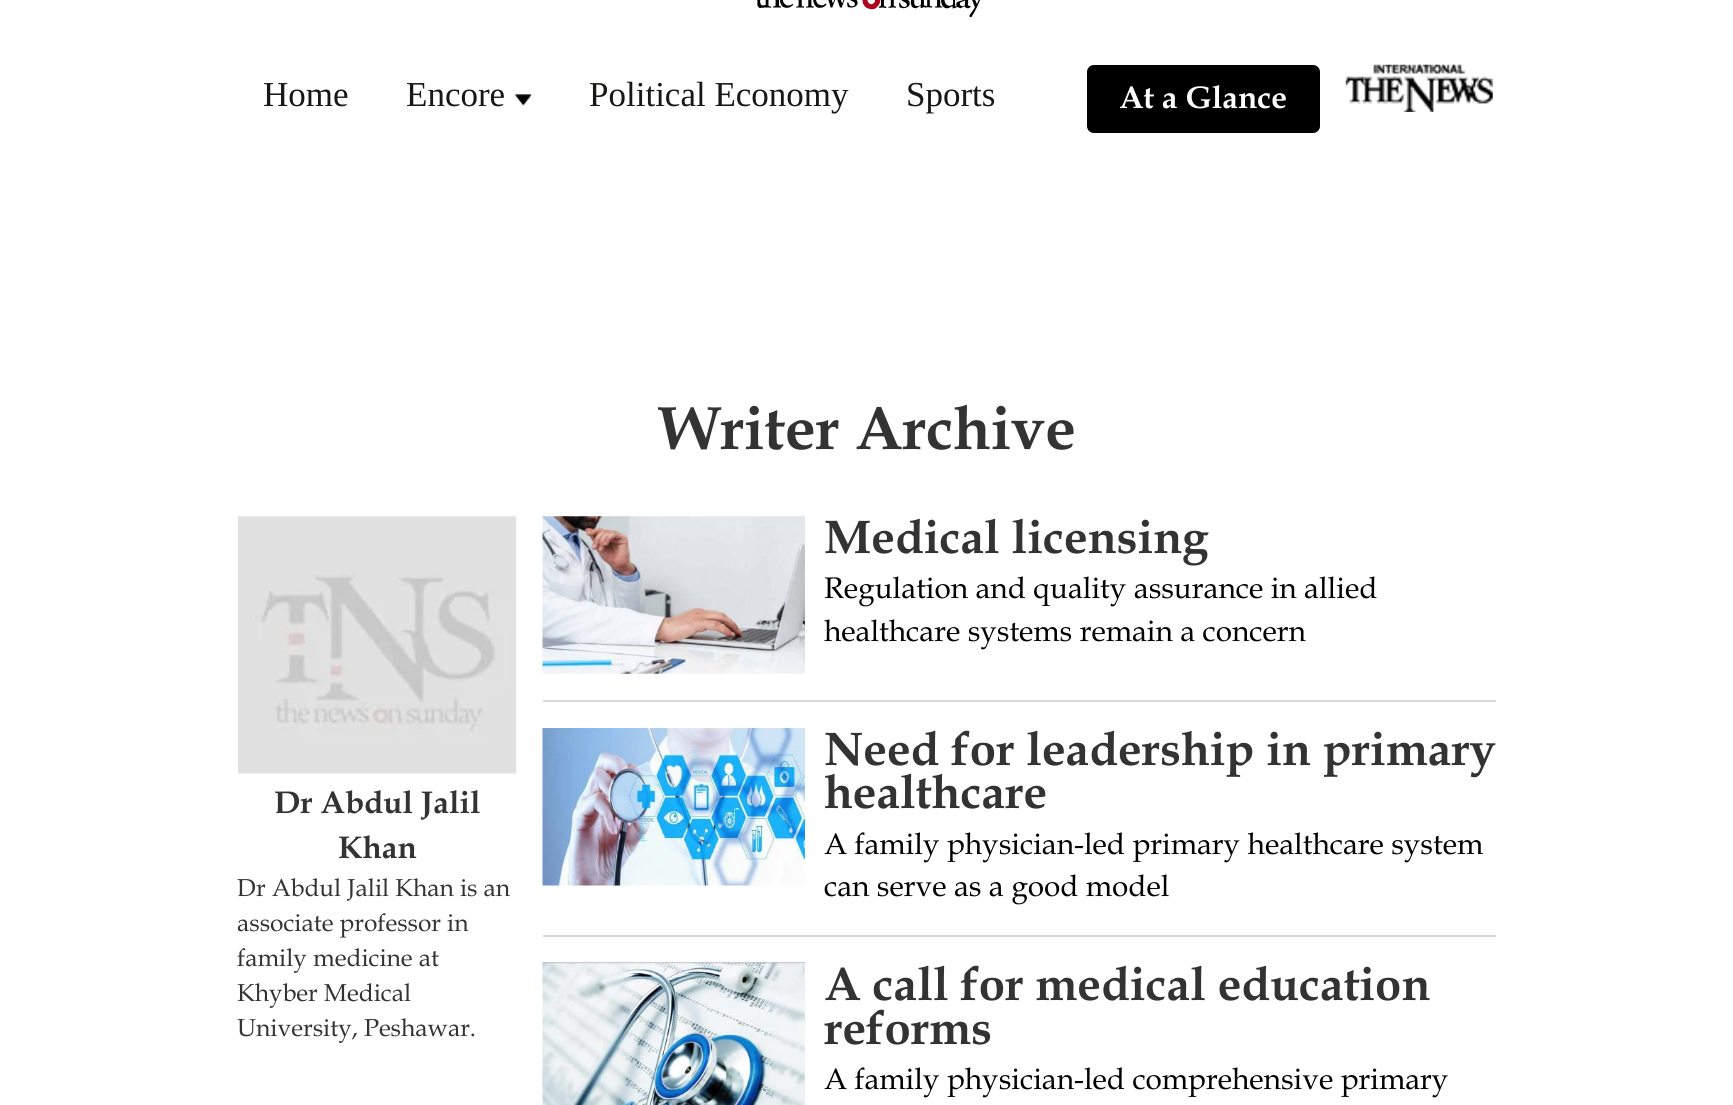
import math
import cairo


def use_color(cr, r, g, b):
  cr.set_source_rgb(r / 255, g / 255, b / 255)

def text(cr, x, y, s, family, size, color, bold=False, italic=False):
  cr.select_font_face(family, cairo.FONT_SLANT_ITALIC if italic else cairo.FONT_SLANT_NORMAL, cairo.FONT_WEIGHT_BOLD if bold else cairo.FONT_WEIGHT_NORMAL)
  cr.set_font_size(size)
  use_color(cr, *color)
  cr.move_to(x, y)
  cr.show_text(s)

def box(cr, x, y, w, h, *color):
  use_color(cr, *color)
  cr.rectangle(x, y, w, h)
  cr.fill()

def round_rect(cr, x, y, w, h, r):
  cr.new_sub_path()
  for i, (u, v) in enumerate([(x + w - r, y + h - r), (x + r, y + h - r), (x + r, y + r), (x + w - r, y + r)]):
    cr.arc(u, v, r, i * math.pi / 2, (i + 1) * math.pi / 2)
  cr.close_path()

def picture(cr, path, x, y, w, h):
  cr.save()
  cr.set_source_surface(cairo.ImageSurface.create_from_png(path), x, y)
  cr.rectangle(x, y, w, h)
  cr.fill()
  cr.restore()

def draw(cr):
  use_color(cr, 255, 255, 255)
  cr.paint()
  picture(cr, "img_01.png", 757, 0, 223, 18)
  picture(cr, "img_02.png", 514, 94, 18, 12)
  use_color(cr, 0, 0, 0)
  round_rect(cr, 1088, 66, 231, 66, 6)
  cr.fill_preserve()
  cr.stroke()
  picture(cr, "img_03.png", 1345, 64, 148, 48)
  picture(cr, "img_04.png", 238, 516, 279, 258)
  box(cr, 543, 700, 953, 2, 215, 215, 215)
  picture(cr, "img_05.png", 542, 516, 263, 158)
  box(cr, 543, 935, 953, 2, 215, 215, 215)
  picture(cr, "img_06.png", 542, 728, 263, 158)
  picture(cr, "img_07.png", 542, 962, 263, 143)
  text(cr, 263, 106, "Home", "Liberation Serif", 35, (24, 23, 22))
  text(cr, 406, 106, "Encore", "Liberation Serif", 35, (24, 23, 22))
  text(cr, 589, 106, "Political Economy", "Liberation Serif", 35, (24, 23, 22))
  text(cr, 906, 106, "Sports", "Liberation Serif", 35, (24, 23, 22))
  text(cr, 1119, 108, "At a Glance", "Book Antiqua", 31.5, (255, 255, 255), bold=True)
  text(cr, 659, 449, "Writer Archive", "Book Antiqua", 61.25, (51, 51, 51), bold=True)
  text(cr, 274, 813, "Dr Abdul Jalil", "Book Antiqua", 31.5, (51, 51, 51), bold=True)
  text(cr, 338, 858, "Khan", "Book Antiqua", 31.5, (51, 51, 51), bold=True)
  text(cr, 237, 896, "Dr Abdul Jalil Khan is an", "Book Antiqua", 24.5, (51, 51, 51))
  text(cr, 237, 931, "associate professor in", "Book Antiqua", 24.5, (51, 51, 51))
  text(cr, 237, 966, "family medicine at", "Book Antiqua", 24.5, (51, 51, 51))
  text(cr, 237, 1001, "Khyber Medical", "Book Antiqua", 24.5, (51, 51, 51))
  text(cr, 237, 1036, "University, Peshawar.", "Book Antiqua", 24.5, (51, 51, 51))
  text(cr, 824, 553, "Medical licensing", "Book Antiqua", 47.25, (51, 51, 51), bold=True)
  text(cr, 824, 598, "Regulation and quality assurance in allied", "Book Antiqua", 29.75, (0, 0, 0))
  text(cr, 824, 641, "healthcare systems remain a concern", "Book Antiqua", 29.75, (0, 0, 0))
  text(cr, 824, 765, "Need for leadership in primary", "Book Antiqua", 47.25, (51, 51, 51), bold=True)
  text(cr, 824, 808, "healthcare", "Book Antiqua", 47.25, (51, 51, 51), bold=True)
  text(cr, 824, 854, "A family physician-led primary healthcare system", "Book Antiqua", 29.75, (0, 0, 0))
  text(cr, 824, 896, "can serve as a good model", "Book Antiqua", 29.75, (0, 0, 0))
  text(cr, 824, 1000, "A call for medical education", "Book Antiqua", 47.25, (51, 51, 51), bold=True)
  text(cr, 824, 1044, "reforms", "Book Antiqua", 47.25, (51, 51, 51), bold=True)
  text(cr, 824, 1089, "A family physician-led comprehensive primary", "Book Antiqua", 29.75, (0, 0, 0))


surface = cairo.ImageSurface(cairo.FORMAT_RGB24, 1733, 1105)
cr = cairo.Context(surface)
options = cairo.FontOptions()
options.set_hint_metrics(cairo.HINT_METRICS_OFF)
options.set_hint_style(cairo.HINT_STYLE_NONE)
cr.set_font_options(options)
cr.set_miter_limit(4)
draw(cr)
surface.write_to_png("out.png")
